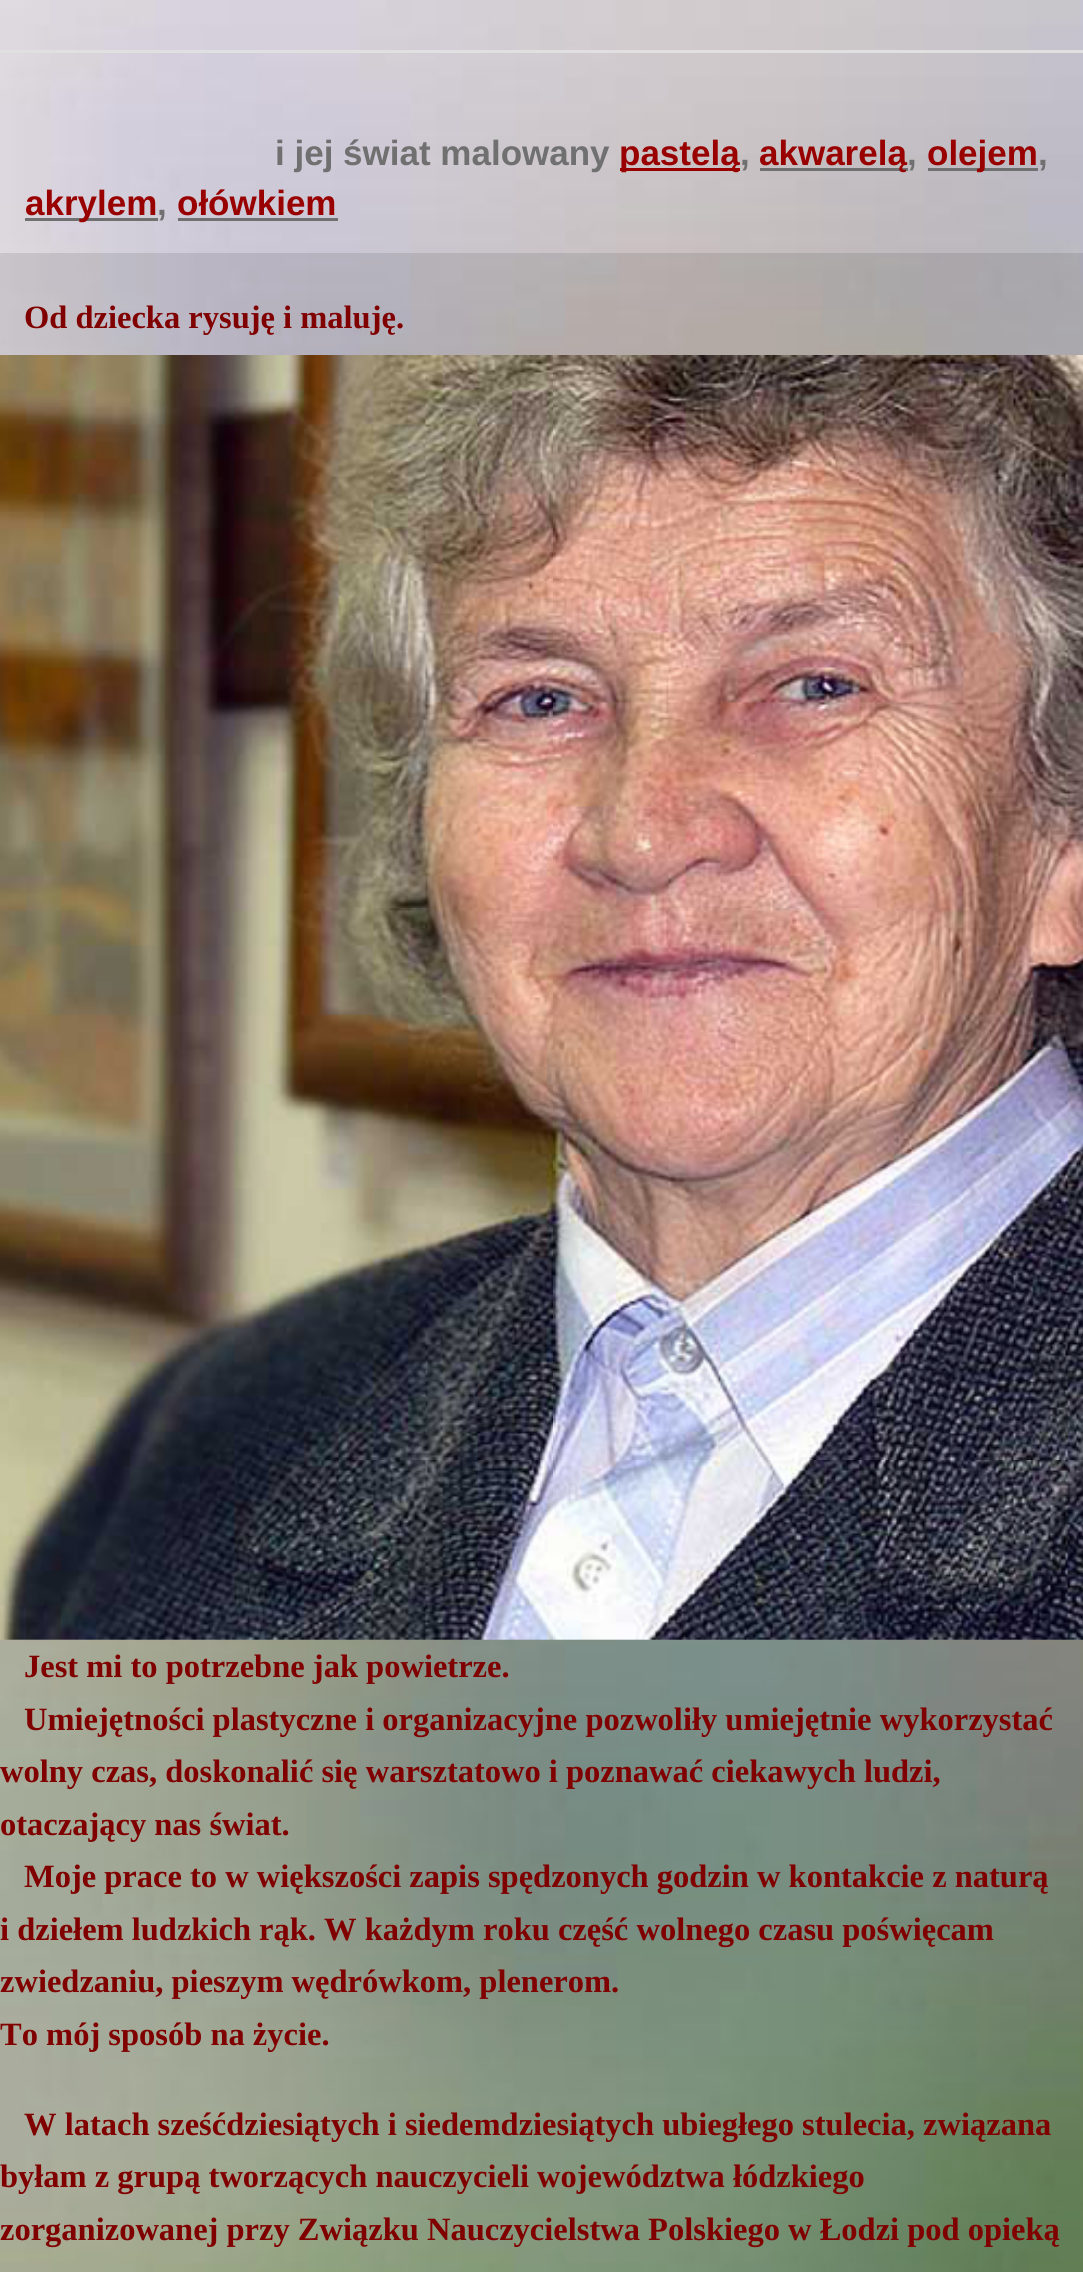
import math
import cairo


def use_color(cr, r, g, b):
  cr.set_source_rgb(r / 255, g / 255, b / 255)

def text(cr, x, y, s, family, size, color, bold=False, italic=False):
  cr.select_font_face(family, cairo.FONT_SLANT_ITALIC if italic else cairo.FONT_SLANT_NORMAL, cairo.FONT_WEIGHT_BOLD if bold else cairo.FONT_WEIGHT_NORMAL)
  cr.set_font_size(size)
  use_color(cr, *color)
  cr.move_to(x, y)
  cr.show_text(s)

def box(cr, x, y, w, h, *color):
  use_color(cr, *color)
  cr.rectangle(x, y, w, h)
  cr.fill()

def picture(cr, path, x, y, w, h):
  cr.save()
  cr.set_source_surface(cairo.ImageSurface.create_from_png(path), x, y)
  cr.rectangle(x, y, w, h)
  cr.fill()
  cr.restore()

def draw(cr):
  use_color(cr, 255, 255, 255)
  cr.paint()
  picture(cr, "img_01.png", 0, 0, 1083, 2272)
  box(cr, 0, 50, 1083, 3, 224, 224, 224)
  box(cr, 620, 168, 120, 3, 153, 0, 0)
  box(cr, 760, 168, 148, 3, 112, 112, 112)
  box(cr, 928, 168, 110, 3, 112, 112, 112)
  box(cr, 25, 218, 133, 3, 112, 112, 112)
  box(cr, 178, 218, 160, 3, 112, 112, 112)
  cr.set_source_rgba(0, 0, 0, 0.1)
  cr.rectangle(0, 253, 1083, 2019)
  cr.fill()
  picture(cr, "img_02.png", 0, 355, 1083, 1285)
  text(cr, 275, 165, "i jej świat malowany", "Liberation Sans", 35, (112, 112, 112), bold=True)
  text(cr, 619, 165, "pastelą", "Liberation Sans", 35, (153, 0, 0), bold=True)
  text(cr, 740, 165, ",", "Liberation Sans", 35, (112, 112, 112), bold=True)
  text(cr, 759, 165, "akwarelą", "Liberation Sans", 35, (153, 0, 0), bold=True)
  text(cr, 907, 165, ",", "Liberation Sans", 35, (112, 112, 112), bold=True)
  text(cr, 927, 165, "olejem", "Liberation Sans", 35, (153, 0, 0), bold=True)
  text(cr, 1038, 165, ",", "Liberation Sans", 35, (112, 112, 112), bold=True)
  text(cr, 25, 215, "akrylem", "Liberation Sans", 35, (153, 0, 0), bold=True)
  text(cr, 157, 215, ",", "Liberation Sans", 35, (112, 112, 112), bold=True)
  text(cr, 177, 215, "ołówkiem", "Liberation Sans", 35, (153, 0, 0), bold=True)
  text(cr, 24, 328, "Od dziecka rysuję i maluję.", "Liberation Serif", 32.5, (128, 0, 0), bold=True)
  text(cr, 24, 1677, "Jest mi to potrzebne jak powietrze.", "Liberation Serif", 32.5, (128, 0, 0), bold=True)
  text(cr, 24, 1730, "Umiejętności plastyczne i organizacyjne pozwoliły umiejętnie wykorzystać", "Liberation Serif", 32.5, (128, 0, 0), bold=True)
  text(cr, 0, 1782, "wolny czas, doskonalić się warsztatowo i poznawać ciekawych ludzi,", "Liberation Serif", 32.5, (128, 0, 0), bold=True)
  text(cr, 0, 1835, "otaczający nas świat.", "Liberation Serif", 32.5, (128, 0, 0), bold=True)
  text(cr, 24, 1887, "Moje prace to w większości zapis spędzonych godzin w kontakcie z naturą", "Liberation Serif", 32.5, (128, 0, 0), bold=True)
  text(cr, 0, 1940, "i dziełem ludzkich rąk. W każdym roku część wolnego czasu poświęcam", "Liberation Serif", 32.5, (128, 0, 0), bold=True)
  text(cr, 0, 1992, "zwiedzaniu, pieszym wędrówkom, plenerom.", "Liberation Serif", 32.5, (128, 0, 0), bold=True)
  text(cr, 0, 2045, "To mój sposób na życie.", "Liberation Serif", 32.5, (128, 0, 0), bold=True)
  text(cr, 24, 2135, "W latach sześćdziesiątych i siedemdziesiątych ubiegłego stulecia, związana", "Liberation Serif", 32.5, (128, 0, 0), bold=True)
  text(cr, 0, 2187, "byłam z grupą tworzących nauczycieli województwa łódzkiego", "Liberation Serif", 32.5, (128, 0, 0), bold=True)
  text(cr, 0, 2240, "zorganizowanej przy Związku Nauczycielstwa Polskiego w Łodzi pod opieką", "Liberation Serif", 32.5, (128, 0, 0), bold=True)


surface = cairo.ImageSurface(cairo.FORMAT_RGB24, 1083, 2272)
cr = cairo.Context(surface)
options = cairo.FontOptions()
options.set_hint_metrics(cairo.HINT_METRICS_OFF)
options.set_hint_style(cairo.HINT_STYLE_NONE)
cr.set_font_options(options)
cr.set_miter_limit(4)
draw(cr)
surface.write_to_png("out.png")
